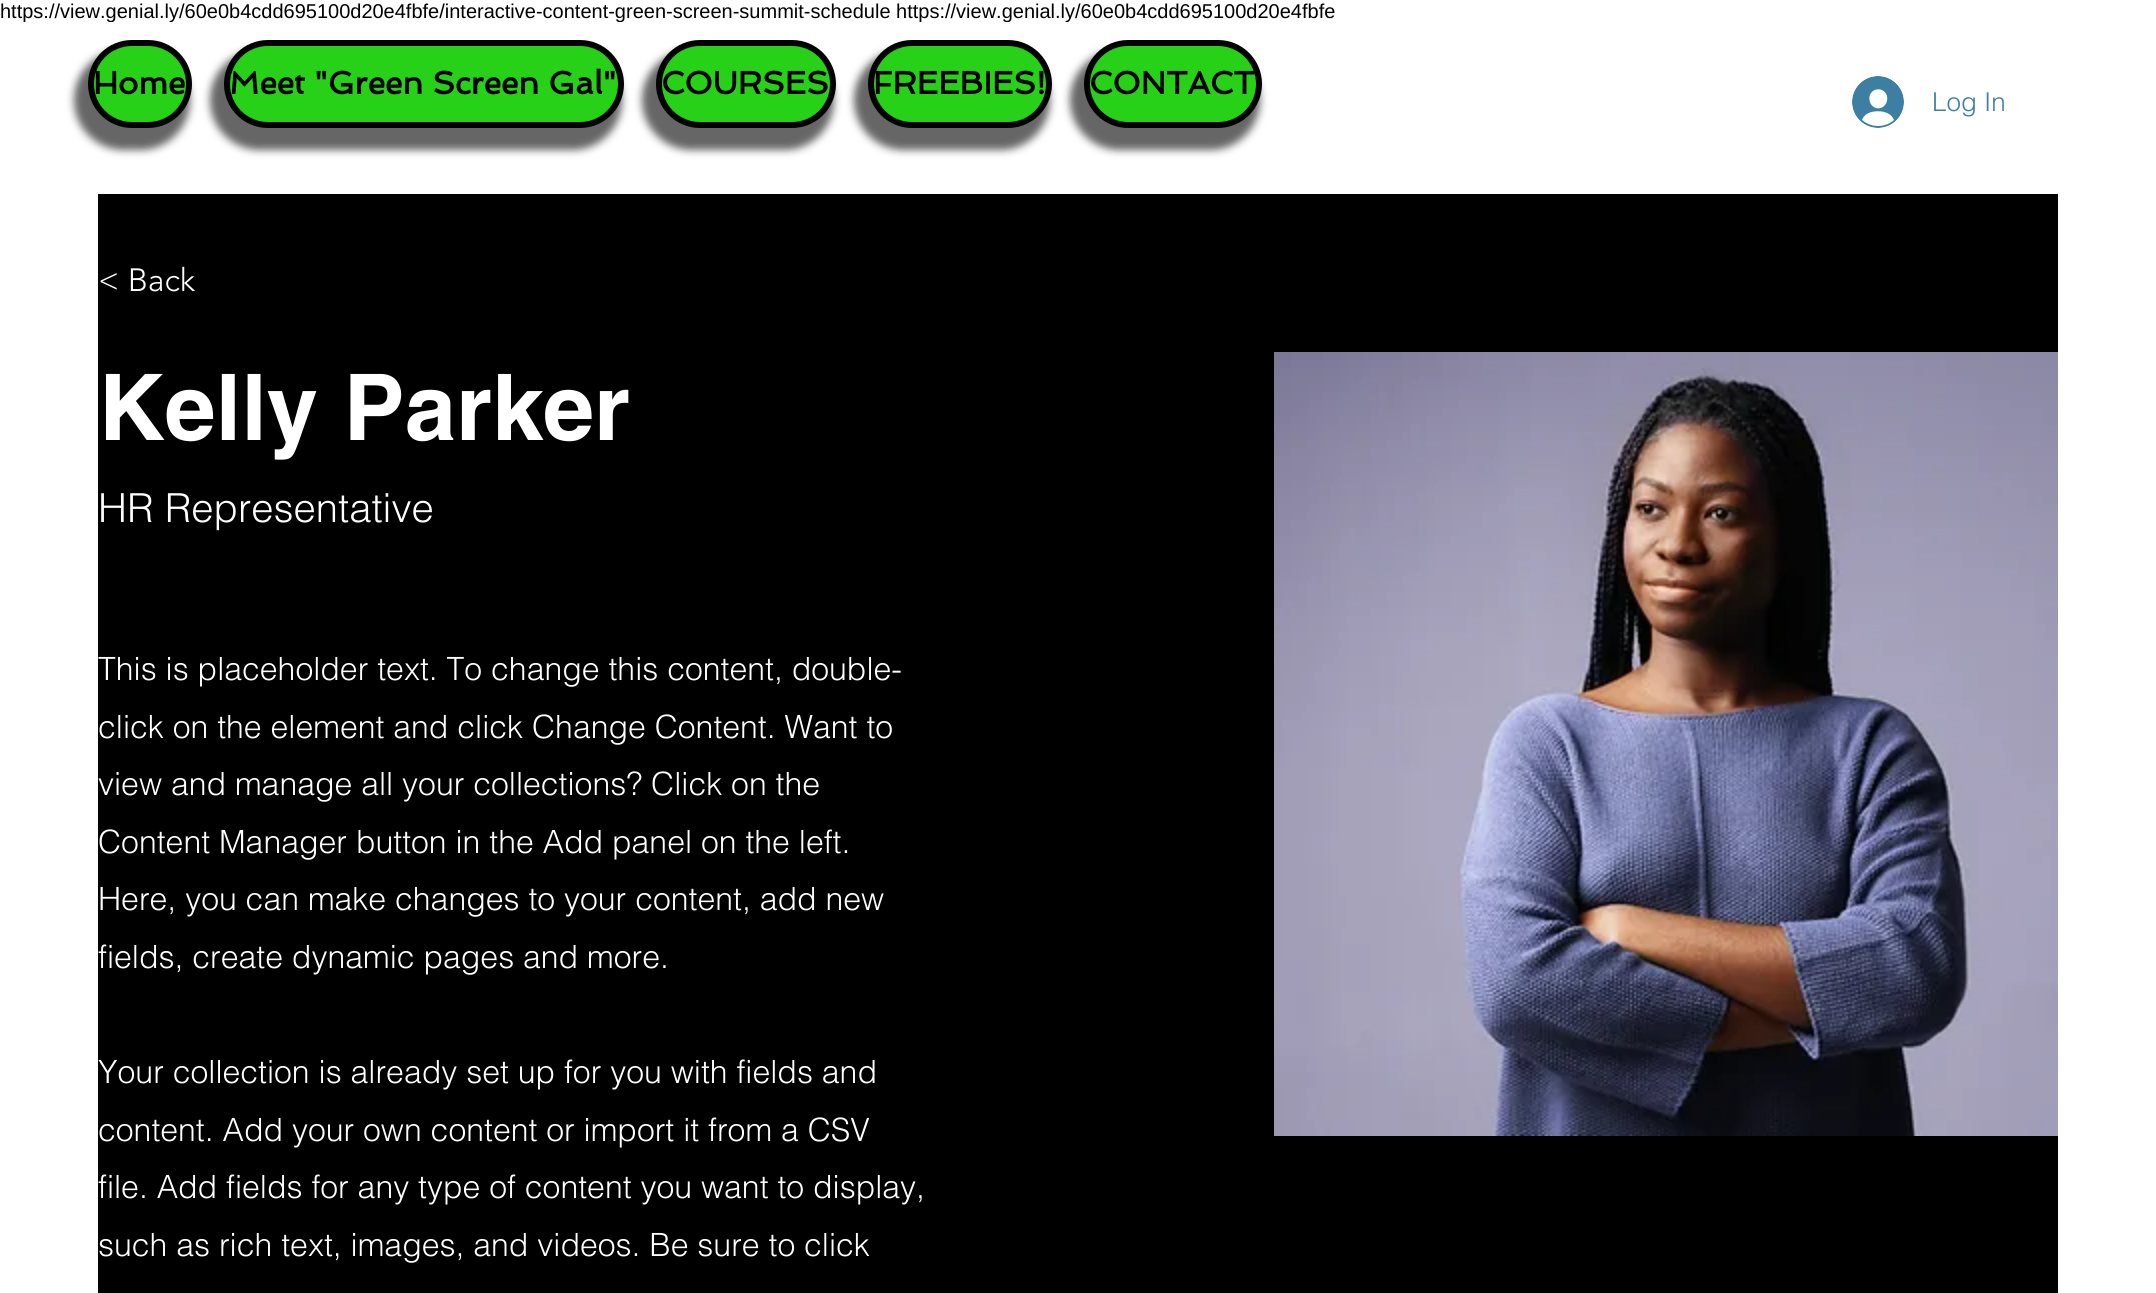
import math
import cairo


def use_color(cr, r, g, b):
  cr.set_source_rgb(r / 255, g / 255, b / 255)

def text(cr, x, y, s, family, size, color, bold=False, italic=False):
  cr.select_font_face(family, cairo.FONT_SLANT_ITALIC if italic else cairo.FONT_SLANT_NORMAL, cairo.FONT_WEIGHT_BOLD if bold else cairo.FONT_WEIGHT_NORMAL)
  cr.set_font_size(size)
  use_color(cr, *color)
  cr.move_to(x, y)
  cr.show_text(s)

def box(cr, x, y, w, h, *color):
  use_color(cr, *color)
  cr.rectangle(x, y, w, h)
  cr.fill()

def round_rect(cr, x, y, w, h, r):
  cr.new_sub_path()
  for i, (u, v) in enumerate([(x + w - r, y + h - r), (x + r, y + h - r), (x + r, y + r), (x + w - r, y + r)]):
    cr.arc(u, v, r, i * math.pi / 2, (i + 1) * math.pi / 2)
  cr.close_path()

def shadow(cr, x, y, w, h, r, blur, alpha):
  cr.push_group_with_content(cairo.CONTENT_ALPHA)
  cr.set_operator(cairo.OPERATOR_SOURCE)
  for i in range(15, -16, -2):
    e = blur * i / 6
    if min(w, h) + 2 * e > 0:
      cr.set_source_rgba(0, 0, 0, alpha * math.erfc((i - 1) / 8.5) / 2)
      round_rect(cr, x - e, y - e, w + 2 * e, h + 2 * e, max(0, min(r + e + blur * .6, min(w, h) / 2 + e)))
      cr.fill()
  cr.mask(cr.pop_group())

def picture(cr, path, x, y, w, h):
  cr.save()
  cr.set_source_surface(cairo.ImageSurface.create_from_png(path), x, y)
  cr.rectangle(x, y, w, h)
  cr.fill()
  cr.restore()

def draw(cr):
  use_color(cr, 255, 255, 255)
  cr.paint()
  use_color(cr, 0, 0, 0)
  shadow(cr, 74, 50, 116, 100, 50, 4, 0.6)
  use_color(cr, 39, 209, 23)
  round_rect(cr, 91, 43, 98, 82, 41)
  cr.fill_preserve()
  use_color(cr, 0, 0, 0)
  cr.set_line_width(6)
  cr.stroke()
  use_color(cr, 0, 0, 0)
  shadow(cr, 210, 50, 412, 100, 50, 4, 0.6)
  use_color(cr, 39, 209, 23)
  round_rect(cr, 227, 43, 394, 82, 41)
  cr.fill_preserve()
  use_color(cr, 0, 0, 0)
  cr.stroke()
  use_color(cr, 0, 0, 0)
  shadow(cr, 642, 50, 192, 100, 50, 4, 0.6)
  use_color(cr, 39, 209, 23)
  round_rect(cr, 659, 43, 174, 82, 41)
  cr.fill_preserve()
  use_color(cr, 0, 0, 0)
  cr.stroke()
  use_color(cr, 0, 0, 0)
  shadow(cr, 854, 50, 196, 100, 50, 4, 0.6)
  use_color(cr, 39, 209, 23)
  round_rect(cr, 871, 43, 178, 82, 41)
  cr.fill_preserve()
  use_color(cr, 0, 0, 0)
  cr.stroke()
  use_color(cr, 0, 0, 0)
  shadow(cr, 1070, 50, 190, 100, 50, 4, 0.6)
  use_color(cr, 39, 209, 23)
  round_rect(cr, 1087, 43, 172, 82, 41)
  cr.fill_preserve()
  use_color(cr, 0, 0, 0)
  cr.stroke()
  picture(cr, "img_01.png", 1852, 76, 52, 52)
  box(cr, 98, 194, 1960, 1099, 0, 0, 0)
  picture(cr, "img_02.png", 1274, 352, 784, 784)
  text(cr, 0, 18, "https://view.genial.ly/60e0b4cdd695100d20e4fbfe/interactive-content-green-screen-summit-schedule https://view.genial.ly/60e0b4cdd695100d20e4fbfe", "Liberation Sans", 20, (0, 0, 0))
  text(cr, 93, 94, "Home", "Spinnaker", 32, (0, 0, 0), bold=True)
  text(cr, 229, 94, "Meet \"Green Screen Gal\"", "Spinnaker", 32, (0, 0, 0), bold=True)
  text(cr, 661, 94, "COURSES", "Spinnaker", 32, (0, 0, 0), bold=True)
  text(cr, 873, 94, "FREEBIES!", "Spinnaker", 32, (0, 0, 0), bold=True)
  text(cr, 1089, 94, "CONTACT", "Spinnaker", 32, (0, 0, 0), bold=True)
  box(cr, 23, 22, 1045, 1, 255, 255, 255)
  text(cr, 1932, 111, "Log In", "helvetica Light", 26, (60, 127, 163))
  text(cr, 98, 291, "< Back", "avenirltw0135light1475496 Light", 32, (255, 255, 255))
  text(cr, 98, 440, "Kelly Parker", "helvetica", 92, (255, 255, 255), bold=True)
  text(cr, 98, 522, "HR Representative", "helvetica Light", 40, (255, 255, 255))
  text(cr, 98, 680, "This is placeholder text. To change this content, double-", "helvetica Light", 32, (255, 255, 255))
  text(cr, 98, 738, "click on the element and click Change Content. Want to", "helvetica Light", 32, (255, 255, 255))
  text(cr, 98, 795, "view and manage all your collections? Click on the", "helvetica Light", 32, (255, 255, 255))
  text(cr, 98, 853, "Content Manager button in the Add panel on the left.", "helvetica Light", 32, (255, 255, 255))
  text(cr, 98, 910, "Here, you can make changes to your content, add new", "helvetica Light", 32, (255, 255, 255))
  text(cr, 98, 968, "fields, create dynamic pages and more.", "helvetica Light", 32, (255, 255, 255))
  text(cr, 98, 1083, "Your collection is already set up for you with fields and", "helvetica Light", 32, (255, 255, 255))
  text(cr, 98, 1141, "content. Add your own content or import it from a CSV", "helvetica Light", 32, (255, 255, 255))
  text(cr, 98, 1198, "file. Add fields for any type of content you want to display,", "helvetica Light", 32, (255, 255, 255))
  text(cr, 98, 1256, "such as rich text, images, and videos. Be sure to click", "helvetica Light", 32, (255, 255, 255))


surface = cairo.ImageSurface(cairo.FORMAT_RGB24, 2156, 1293)
cr = cairo.Context(surface)
options = cairo.FontOptions()
options.set_hint_metrics(cairo.HINT_METRICS_OFF)
options.set_hint_style(cairo.HINT_STYLE_NONE)
cr.set_font_options(options)
cr.set_miter_limit(4)
draw(cr)
surface.write_to_png("out.png")
